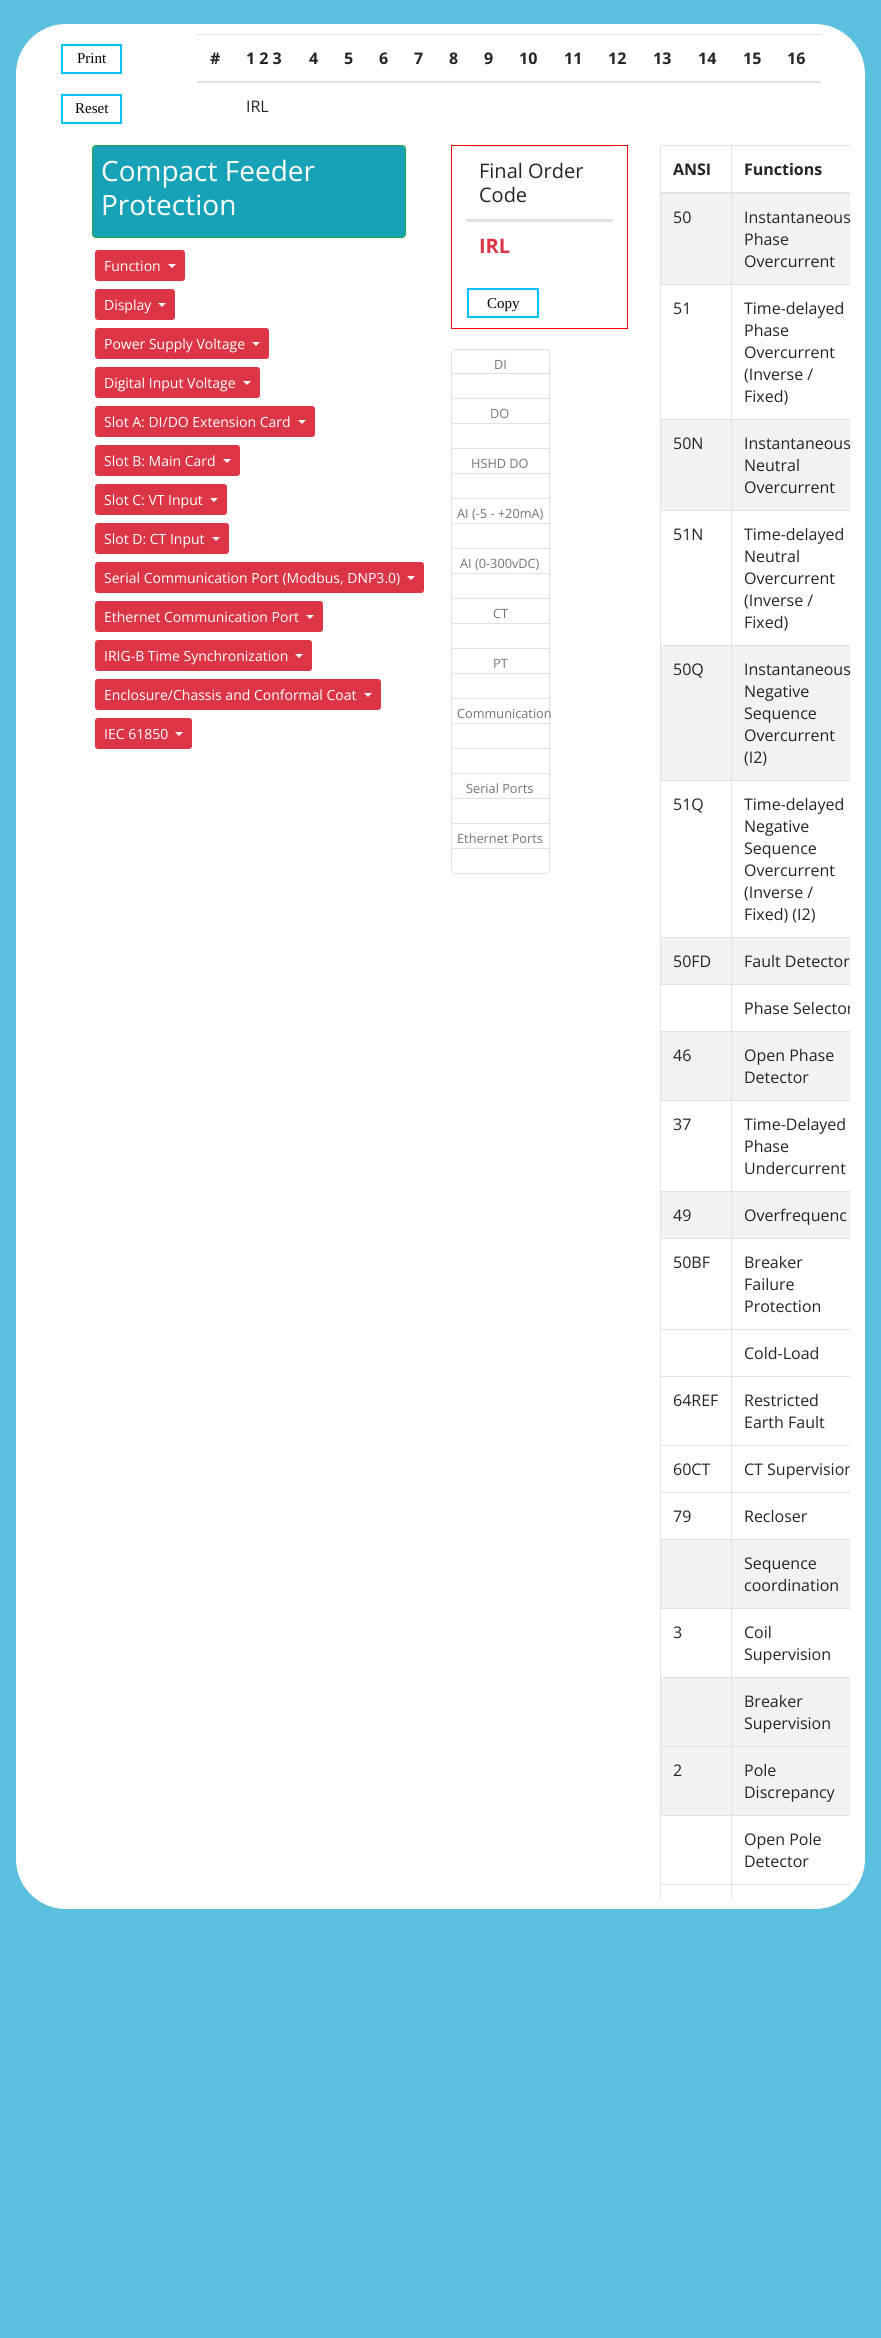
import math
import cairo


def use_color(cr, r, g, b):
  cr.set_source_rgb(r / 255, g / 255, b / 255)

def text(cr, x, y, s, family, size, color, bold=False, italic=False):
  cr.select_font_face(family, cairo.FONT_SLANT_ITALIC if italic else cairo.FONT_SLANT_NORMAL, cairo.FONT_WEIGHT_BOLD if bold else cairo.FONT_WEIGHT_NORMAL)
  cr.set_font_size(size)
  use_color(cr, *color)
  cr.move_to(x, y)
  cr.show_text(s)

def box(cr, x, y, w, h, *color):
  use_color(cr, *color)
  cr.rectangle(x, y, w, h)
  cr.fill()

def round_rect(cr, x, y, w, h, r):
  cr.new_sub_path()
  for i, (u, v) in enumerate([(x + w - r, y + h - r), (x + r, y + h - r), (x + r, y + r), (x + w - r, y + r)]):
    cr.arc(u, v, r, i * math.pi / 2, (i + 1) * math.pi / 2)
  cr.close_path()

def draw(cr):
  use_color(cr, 91, 192, 222)
  cr.paint()
  use_color(cr, 255, 255, 255)
  round_rect(cr, 16, 24, 849, 1885, 50)
  cr.fill()
  cr.rectangle(62, 45, 59, 28)
  use_color(cr, 0, 192, 250)
  cr.stroke()
  cr.rectangle(62, 95, 59, 28)
  cr.stroke()
  box(cr, 197, 34, 624, 1, 222, 226, 230)
  box(cr, 197, 81, 624, 2, 222, 226, 230)
  use_color(cr, 23, 162, 184)
  round_rect(cr, 92.5, 145.5, 313, 92, 3.5)
  cr.fill_preserve()
  use_color(cr, 40, 167, 69)
  cr.set_line_width(1)
  cr.stroke()
  use_color(cr, 220, 53, 69)
  round_rect(cr, 95.5, 250.5, 89, 30, 2.5)
  cr.fill_preserve()
  cr.stroke()
  use_color(cr, 255, 255, 255)
  cr.new_path()
  cr.move_to(168, 264)
  cr.line_to(176, 264)
  cr.line_to(172, 268)
  cr.close_path()
  cr.fill()
  use_color(cr, 220, 53, 69)
  round_rect(cr, 95.5, 289.5, 79, 30, 2.5)
  cr.fill_preserve()
  cr.stroke()
  use_color(cr, 255, 255, 255)
  cr.new_path()
  cr.move_to(158, 303)
  cr.line_to(166, 303)
  cr.line_to(162, 307)
  cr.close_path()
  cr.fill()
  use_color(cr, 220, 53, 69)
  round_rect(cr, 95.5, 328.5, 173, 30, 2.5)
  cr.fill_preserve()
  cr.stroke()
  use_color(cr, 255, 255, 255)
  cr.new_path()
  cr.move_to(252, 342)
  cr.line_to(260, 342)
  cr.line_to(256, 346)
  cr.close_path()
  cr.fill()
  use_color(cr, 220, 53, 69)
  round_rect(cr, 95.5, 367.5, 164, 30, 2.5)
  cr.fill_preserve()
  cr.stroke()
  use_color(cr, 255, 255, 255)
  cr.new_path()
  cr.move_to(243, 381)
  cr.line_to(251, 381)
  cr.line_to(247, 385)
  cr.close_path()
  cr.fill()
  use_color(cr, 220, 53, 69)
  round_rect(cr, 95.5, 406.5, 219, 30, 2.5)
  cr.fill_preserve()
  cr.stroke()
  use_color(cr, 255, 255, 255)
  cr.new_path()
  cr.move_to(298, 420)
  cr.line_to(306, 420)
  cr.line_to(302, 424)
  cr.close_path()
  cr.fill()
  use_color(cr, 220, 53, 69)
  round_rect(cr, 95.5, 445.5, 144, 30, 2.5)
  cr.fill_preserve()
  cr.stroke()
  use_color(cr, 255, 255, 255)
  cr.new_path()
  cr.move_to(223, 459)
  cr.line_to(231, 459)
  cr.line_to(227, 463)
  cr.close_path()
  cr.fill()
  use_color(cr, 220, 53, 69)
  round_rect(cr, 95.5, 484.5, 131, 30, 2.5)
  cr.fill_preserve()
  cr.stroke()
  use_color(cr, 255, 255, 255)
  cr.new_path()
  cr.move_to(210, 498)
  cr.line_to(218, 498)
  cr.line_to(214, 502)
  cr.close_path()
  cr.fill()
  use_color(cr, 220, 53, 69)
  round_rect(cr, 95.5, 523.5, 133, 30, 2.5)
  cr.fill_preserve()
  cr.stroke()
  use_color(cr, 255, 255, 255)
  cr.new_path()
  cr.move_to(212, 537)
  cr.line_to(220, 537)
  cr.line_to(216, 541)
  cr.close_path()
  cr.fill()
  use_color(cr, 220, 53, 69)
  round_rect(cr, 95.5, 562.5, 328, 30, 2.5)
  cr.fill_preserve()
  cr.stroke()
  use_color(cr, 255, 255, 255)
  cr.new_path()
  cr.move_to(407, 576)
  cr.line_to(415, 576)
  cr.line_to(411, 580)
  cr.close_path()
  cr.fill()
  use_color(cr, 220, 53, 69)
  round_rect(cr, 95.5, 601.5, 227, 30, 2.5)
  cr.fill_preserve()
  cr.stroke()
  use_color(cr, 255, 255, 255)
  cr.new_path()
  cr.move_to(306, 615)
  cr.line_to(314, 615)
  cr.line_to(310, 619)
  cr.close_path()
  cr.fill()
  use_color(cr, 220, 53, 69)
  round_rect(cr, 95.5, 640.5, 216, 30, 2.5)
  cr.fill_preserve()
  cr.stroke()
  use_color(cr, 255, 255, 255)
  cr.new_path()
  cr.move_to(295, 654)
  cr.line_to(303, 654)
  cr.line_to(299, 658)
  cr.close_path()
  cr.fill()
  use_color(cr, 220, 53, 69)
  round_rect(cr, 95.5, 679.5, 285, 30, 2.5)
  cr.fill_preserve()
  cr.stroke()
  use_color(cr, 255, 255, 255)
  cr.new_path()
  cr.move_to(364, 693)
  cr.line_to(372, 693)
  cr.line_to(368, 697)
  cr.close_path()
  cr.fill()
  use_color(cr, 220, 53, 69)
  round_rect(cr, 95.5, 718.5, 96, 30, 2.5)
  cr.fill_preserve()
  cr.stroke()
  use_color(cr, 255, 255, 255)
  cr.new_path()
  cr.move_to(175, 732)
  cr.line_to(183, 732)
  cr.line_to(179, 736)
  cr.close_path()
  cr.fill()
  cr.rectangle(451.5, 145.5, 176, 183)
  use_color(cr, 255, 0, 0)
  cr.stroke()
  box(cr, 466, 146, 147, 1, 222, 226, 230)
  box(cr, 466, 219, 147, 2, 222, 226, 230)
  box(cr, 467, 221, 145, 1, 222, 226, 230)
  cr.rectangle(468, 289, 70, 28)
  use_color(cr, 0, 192, 250)
  cr.set_line_width(2)
  cr.stroke()
  cr.new_path()
  cr.move_to(455, 349.5)
  cr.line_to(546, 349.5)
  cr.curve_to(548, 349.5, 549.5, 351, 549.5, 353)
  cr.line_to(549.5, 373.5)
  cr.line_to(451.5, 373.5)
  cr.line_to(451.5, 353)
  cr.curve_to(451.5, 351, 453, 349.5, 455, 349.5)
  cr.close_path()
  use_color(cr, 223, 223, 223)
  cr.set_line_width(1)
  cr.stroke()
  cr.new_path()
  cr.move_to(550, 374)
  cr.line_to(550, 399)
  cr.line_to(549, 398)
  cr.line_to(549, 374)
  cr.close_path()
  cr.fill()
  cr.set_source_rgba(0, 0, 0, 0.12)
  cr.new_path()
  cr.move_to(550, 399)
  cr.line_to(451, 399)
  cr.line_to(452, 398)
  cr.line_to(549, 398)
  cr.close_path()
  cr.fill()
  cr.new_path()
  cr.move_to(451, 399)
  cr.line_to(451, 374)
  cr.line_to(452, 374)
  cr.line_to(452, 398)
  cr.close_path()
  cr.fill()
  use_color(cr, 223, 223, 223)
  cr.new_path()
  cr.move_to(550, 399)
  cr.line_to(550, 424)
  cr.line_to(549, 423)
  cr.line_to(549, 399)
  cr.close_path()
  cr.fill()
  cr.set_source_rgba(0, 0, 0, 0.12)
  cr.new_path()
  cr.move_to(550, 424)
  cr.line_to(451, 424)
  cr.line_to(452, 423)
  cr.line_to(549, 423)
  cr.close_path()
  cr.fill()
  cr.new_path()
  cr.move_to(451, 424)
  cr.line_to(451, 399)
  cr.line_to(452, 399)
  cr.line_to(452, 423)
  cr.close_path()
  cr.fill()
  use_color(cr, 223, 223, 223)
  cr.new_path()
  cr.move_to(550, 424)
  cr.line_to(550, 449)
  cr.line_to(549, 448)
  cr.line_to(549, 424)
  cr.close_path()
  cr.fill()
  cr.set_source_rgba(0, 0, 0, 0.12)
  cr.new_path()
  cr.move_to(550, 449)
  cr.line_to(451, 449)
  cr.line_to(452, 448)
  cr.line_to(549, 448)
  cr.close_path()
  cr.fill()
  cr.new_path()
  cr.move_to(451, 449)
  cr.line_to(451, 424)
  cr.line_to(452, 424)
  cr.line_to(452, 448)
  cr.close_path()
  cr.fill()
  use_color(cr, 223, 223, 223)
  cr.new_path()
  cr.move_to(550, 449)
  cr.line_to(550, 474)
  cr.line_to(549, 473)
  cr.line_to(549, 449)
  cr.close_path()
  cr.fill()
  cr.set_source_rgba(0, 0, 0, 0.12)
  cr.new_path()
  cr.move_to(550, 474)
  cr.line_to(451, 474)
  cr.line_to(452, 473)
  cr.line_to(549, 473)
  cr.close_path()
  cr.fill()
  cr.new_path()
  cr.move_to(451, 474)
  cr.line_to(451, 449)
  cr.line_to(452, 449)
  cr.line_to(452, 473)
  cr.close_path()
  cr.fill()
  use_color(cr, 223, 223, 223)
  cr.new_path()
  cr.move_to(550, 474)
  cr.line_to(550, 499)
  cr.line_to(549, 498)
  cr.line_to(549, 474)
  cr.close_path()
  cr.fill()
  cr.set_source_rgba(0, 0, 0, 0.12)
  cr.new_path()
  cr.move_to(550, 499)
  cr.line_to(451, 499)
  cr.line_to(452, 498)
  cr.line_to(549, 498)
  cr.close_path()
  cr.fill()
  cr.new_path()
  cr.move_to(451, 499)
  cr.line_to(451, 474)
  cr.line_to(452, 474)
  cr.line_to(452, 498)
  cr.close_path()
  cr.fill()
  use_color(cr, 223, 223, 223)
  cr.new_path()
  cr.move_to(550, 499)
  cr.line_to(550, 524)
  cr.line_to(549, 523)
  cr.line_to(549, 499)
  cr.close_path()
  cr.fill()
  cr.set_source_rgba(0, 0, 0, 0.12)
  cr.new_path()
  cr.move_to(550, 524)
  cr.line_to(451, 524)
  cr.line_to(452, 523)
  cr.line_to(549, 523)
  cr.close_path()
  cr.fill()
  cr.new_path()
  cr.move_to(451, 524)
  cr.line_to(451, 499)
  cr.line_to(452, 499)
  cr.line_to(452, 523)
  cr.close_path()
  cr.fill()
  use_color(cr, 223, 223, 223)
  cr.new_path()
  cr.move_to(550, 524)
  cr.line_to(550, 549)
  cr.line_to(549, 548)
  cr.line_to(549, 524)
  cr.close_path()
  cr.fill()
  cr.set_source_rgba(0, 0, 0, 0.12)
  cr.new_path()
  cr.move_to(550, 549)
  cr.line_to(451, 549)
  cr.line_to(452, 548)
  cr.line_to(549, 548)
  cr.close_path()
  cr.fill()
  cr.new_path()
  cr.move_to(451, 549)
  cr.line_to(451, 524)
  cr.line_to(452, 524)
  cr.line_to(452, 548)
  cr.close_path()
  cr.fill()
  use_color(cr, 223, 223, 223)
  cr.new_path()
  cr.move_to(550, 549)
  cr.line_to(550, 574)
  cr.line_to(549, 573)
  cr.line_to(549, 549)
  cr.close_path()
  cr.fill()
  cr.set_source_rgba(0, 0, 0, 0.12)
  cr.new_path()
  cr.move_to(550, 574)
  cr.line_to(451, 574)
  cr.line_to(452, 573)
  cr.line_to(549, 573)
  cr.close_path()
  cr.fill()
  cr.new_path()
  cr.move_to(451, 574)
  cr.line_to(451, 549)
  cr.line_to(452, 549)
  cr.line_to(452, 573)
  cr.close_path()
  cr.fill()
  use_color(cr, 223, 223, 223)
  cr.new_path()
  cr.move_to(550, 574)
  cr.line_to(550, 599)
  cr.line_to(549, 598)
  cr.line_to(549, 574)
  cr.close_path()
  cr.fill()
  cr.set_source_rgba(0, 0, 0, 0.12)
  cr.new_path()
  cr.move_to(550, 599)
  cr.line_to(451, 599)
  cr.line_to(452, 598)
  cr.line_to(549, 598)
  cr.close_path()
  cr.fill()
  cr.new_path()
  cr.move_to(451, 599)
  cr.line_to(451, 574)
  cr.line_to(452, 574)
  cr.line_to(452, 598)
  cr.close_path()
  cr.fill()
  use_color(cr, 223, 223, 223)
  cr.new_path()
  cr.move_to(550, 599)
  cr.line_to(550, 624)
  cr.line_to(549, 623)
  cr.line_to(549, 599)
  cr.close_path()
  cr.fill()
  cr.set_source_rgba(0, 0, 0, 0.12)
  cr.new_path()
  cr.move_to(550, 624)
  cr.line_to(451, 624)
  cr.line_to(452, 623)
  cr.line_to(549, 623)
  cr.close_path()
  cr.fill()
  cr.new_path()
  cr.move_to(451, 624)
  cr.line_to(451, 599)
  cr.line_to(452, 599)
  cr.line_to(452, 623)
  cr.close_path()
  cr.fill()
  use_color(cr, 223, 223, 223)
  cr.new_path()
  cr.move_to(550, 624)
  cr.line_to(550, 649)
  cr.line_to(549, 648)
  cr.line_to(549, 624)
  cr.close_path()
  cr.fill()
  cr.set_source_rgba(0, 0, 0, 0.12)
  cr.new_path()
  cr.move_to(550, 649)
  cr.line_to(451, 649)
  cr.line_to(452, 648)
  cr.line_to(549, 648)
  cr.close_path()
  cr.fill()
  cr.new_path()
  cr.move_to(451, 649)
  cr.line_to(451, 624)
  cr.line_to(452, 624)
  cr.line_to(452, 648)
  cr.close_path()
  cr.fill()
  use_color(cr, 223, 223, 223)
  cr.new_path()
  cr.move_to(550, 649)
  cr.line_to(550, 674)
  cr.line_to(549, 673)
  cr.line_to(549, 649)
  cr.close_path()
  cr.fill()
  cr.set_source_rgba(0, 0, 0, 0.12)
  cr.new_path()
  cr.move_to(550, 674)
  cr.line_to(451, 674)
  cr.line_to(452, 673)
  cr.line_to(549, 673)
  cr.close_path()
  cr.fill()
  cr.new_path()
  cr.move_to(451, 674)
  cr.line_to(451, 649)
  cr.line_to(452, 649)
  cr.line_to(452, 673)
  cr.close_path()
  cr.fill()
  use_color(cr, 223, 223, 223)
  cr.new_path()
  cr.move_to(550, 674)
  cr.line_to(550, 699)
  cr.line_to(549, 698)
  cr.line_to(549, 674)
  cr.close_path()
  cr.fill()
  cr.set_source_rgba(0, 0, 0, 0.12)
  cr.new_path()
  cr.move_to(550, 699)
  cr.line_to(451, 699)
  cr.line_to(452, 698)
  cr.line_to(549, 698)
  cr.close_path()
  cr.fill()
  cr.new_path()
  cr.move_to(451, 699)
  cr.line_to(451, 674)
  cr.line_to(452, 674)
  cr.line_to(452, 698)
  cr.close_path()
  cr.fill()
  use_color(cr, 223, 223, 223)
  cr.new_path()
  cr.move_to(550, 699)
  cr.line_to(550, 724)
  cr.line_to(549, 723)
  cr.line_to(549, 699)
  cr.close_path()
  cr.fill()
  cr.set_source_rgba(0, 0, 0, 0.12)
  cr.new_path()
  cr.move_to(550, 724)
  cr.line_to(451, 724)
  cr.line_to(452, 723)
  cr.line_to(549, 723)
  cr.close_path()
  cr.fill()
  cr.new_path()
  cr.move_to(451, 724)
  cr.line_to(451, 699)
  cr.line_to(452, 699)
  cr.line_to(452, 723)
  cr.close_path()
  cr.fill()
  use_color(cr, 223, 223, 223)
  cr.new_path()
  cr.move_to(550, 724)
  cr.line_to(550, 749)
  cr.line_to(549, 748)
  cr.line_to(549, 724)
  cr.close_path()
  cr.fill()
  cr.set_source_rgba(0, 0, 0, 0.12)
  cr.new_path()
  cr.move_to(550, 749)
  cr.line_to(451, 749)
  cr.line_to(452, 748)
  cr.line_to(549, 748)
  cr.close_path()
  cr.fill()
  cr.new_path()
  cr.move_to(451, 749)
  cr.line_to(451, 724)
  cr.line_to(452, 724)
  cr.line_to(452, 748)
  cr.close_path()
  cr.fill()
  use_color(cr, 223, 223, 223)
  cr.new_path()
  cr.move_to(550, 749)
  cr.line_to(550, 774)
  cr.line_to(549, 773)
  cr.line_to(549, 749)
  cr.close_path()
  cr.fill()
  cr.set_source_rgba(0, 0, 0, 0.12)
  cr.new_path()
  cr.move_to(550, 774)
  cr.line_to(451, 774)
  cr.line_to(452, 773)
  cr.line_to(549, 773)
  cr.close_path()
  cr.fill()
  cr.new_path()
  cr.move_to(451, 774)
  cr.line_to(451, 749)
  cr.line_to(452, 749)
  cr.line_to(452, 773)
  cr.close_path()
  cr.fill()
  use_color(cr, 223, 223, 223)
  cr.new_path()
  cr.move_to(550, 774)
  cr.line_to(550, 799)
  cr.line_to(549, 798)
  cr.line_to(549, 774)
  cr.close_path()
  cr.fill()
  cr.set_source_rgba(0, 0, 0, 0.12)
  cr.new_path()
  cr.move_to(550, 799)
  cr.line_to(451, 799)
  cr.line_to(452, 798)
  cr.line_to(549, 798)
  cr.close_path()
  cr.fill()
  cr.new_path()
  cr.move_to(451, 799)
  cr.line_to(451, 774)
  cr.line_to(452, 774)
  cr.line_to(452, 798)
  cr.close_path()
  cr.fill()
  use_color(cr, 223, 223, 223)
  cr.new_path()
  cr.move_to(550, 799)
  cr.line_to(550, 824)
  cr.line_to(549, 823)
  cr.line_to(549, 799)
  cr.close_path()
  cr.fill()
  cr.set_source_rgba(0, 0, 0, 0.12)
  cr.new_path()
  cr.move_to(550, 824)
  cr.line_to(451, 824)
  cr.line_to(452, 823)
  cr.line_to(549, 823)
  cr.close_path()
  cr.fill()
  cr.new_path()
  cr.move_to(451, 824)
  cr.line_to(451, 799)
  cr.line_to(452, 799)
  cr.line_to(452, 823)
  cr.close_path()
  cr.fill()
  use_color(cr, 223, 223, 223)
  cr.new_path()
  cr.move_to(550, 824)
  cr.line_to(550, 849)
  cr.line_to(549, 848)
  cr.line_to(549, 824)
  cr.close_path()
  cr.fill()
  cr.set_source_rgba(0, 0, 0, 0.12)
  cr.new_path()
  cr.move_to(550, 849)
  cr.line_to(451, 849)
  cr.line_to(452, 848)
  cr.line_to(549, 848)
  cr.close_path()
  cr.fill()
  cr.new_path()
  cr.move_to(451, 849)
  cr.line_to(451, 824)
  cr.line_to(452, 824)
  cr.line_to(452, 848)
  cr.close_path()
  cr.fill()
  use_color(cr, 223, 223, 223)
  cr.set_fill_rule(cairo.FILL_RULE_EVEN_ODD)
  cr.new_path()
  cr.move_to(451, 849)
  cr.line_to(550, 849)
  cr.line_to(550, 870)
  cr.curve_to(550, 872, 548, 874, 546, 874)
  cr.line_to(455, 874)
  cr.curve_to(453, 874, 451, 872, 451, 870)
  cr.close_path()
  cr.move_to(452, 849)
  cr.line_to(549, 849)
  cr.line_to(549, 870)
  cr.curve_to(549, 872, 548, 873, 546, 873)
  cr.line_to(455, 873)
  cr.curve_to(453, 873, 452, 872, 452, 870)
  cr.close_path()
  cr.fill()
  box(cr, 660, 145, 190, 1, 222, 226, 230)
  box(cr, 660, 145, 1, 1754, 222, 226, 230)
  box(cr, 661, 194, 189, 90, 242, 242, 242)
  box(cr, 731, 284, 119, 1, 222, 226, 230)
  box(cr, 731, 419, 119, 1, 222, 226, 230)
  box(cr, 661, 420, 189, 90, 242, 242, 242)
  box(cr, 731, 510, 119, 1, 222, 226, 230)
  box(cr, 731, 645, 119, 1, 222, 226, 230)
  box(cr, 661, 646, 189, 134, 242, 242, 242)
  box(cr, 731, 780, 119, 1, 222, 226, 230)
  box(cr, 731, 937, 119, 1, 222, 226, 230)
  box(cr, 661, 938, 189, 46, 242, 242, 242)
  box(cr, 731, 984, 119, 1, 222, 226, 230)
  box(cr, 731, 1031, 119, 1, 222, 226, 230)
  box(cr, 661, 1032, 189, 68, 242, 242, 242)
  box(cr, 731, 1100, 119, 1, 222, 226, 230)
  box(cr, 731, 1191, 119, 1, 222, 226, 230)
  box(cr, 661, 1192, 189, 46, 242, 242, 242)
  box(cr, 731, 1238, 119, 1, 222, 226, 230)
  box(cr, 731, 1329, 119, 1, 222, 226, 230)
  box(cr, 731, 1376, 119, 1, 222, 226, 230)
  box(cr, 731, 1445, 119, 1, 222, 226, 230)
  box(cr, 731, 1492, 119, 1, 222, 226, 230)
  box(cr, 731, 1539, 119, 1, 222, 226, 230)
  box(cr, 661, 1540, 189, 68, 242, 242, 242)
  box(cr, 731, 1608, 119, 1, 222, 226, 230)
  box(cr, 731, 1677, 119, 1, 222, 226, 230)
  box(cr, 661, 1678, 189, 68, 242, 242, 242)
  box(cr, 731, 1746, 119, 1, 222, 226, 230)
  box(cr, 661, 1747, 189, 68, 242, 242, 242)
  box(cr, 731, 1815, 119, 1, 222, 226, 230)
  box(cr, 731, 1884, 119, 1, 222, 226, 230)
  box(cr, 731, 1884, 1, 15, 222, 226, 230)
  box(cr, 660, 1884, 72, 1, 222, 226, 230)
  box(cr, 731, 1815, 1, 70, 222, 226, 230)
  box(cr, 660, 1815, 72, 1, 222, 226, 230)
  box(cr, 731, 1746, 1, 70, 222, 226, 230)
  box(cr, 660, 1746, 72, 1, 222, 226, 230)
  box(cr, 731, 1677, 1, 70, 222, 226, 230)
  box(cr, 660, 1677, 72, 1, 222, 226, 230)
  box(cr, 731, 1608, 1, 70, 222, 226, 230)
  box(cr, 660, 1608, 72, 1, 222, 226, 230)
  box(cr, 731, 1539, 1, 70, 222, 226, 230)
  box(cr, 660, 1539, 72, 1, 222, 226, 230)
  box(cr, 731, 1492, 1, 48, 222, 226, 230)
  box(cr, 660, 1492, 72, 1, 222, 226, 230)
  box(cr, 731, 1445, 1, 48, 222, 226, 230)
  box(cr, 660, 1445, 72, 1, 222, 226, 230)
  box(cr, 731, 1376, 1, 70, 222, 226, 230)
  box(cr, 660, 1376, 72, 1, 222, 226, 230)
  box(cr, 731, 1329, 1, 48, 222, 226, 230)
  box(cr, 660, 1329, 72, 1, 222, 226, 230)
  box(cr, 731, 1238, 1, 92, 222, 226, 230)
  box(cr, 660, 1238, 72, 1, 222, 226, 230)
  box(cr, 731, 1191, 1, 48, 222, 226, 230)
  box(cr, 660, 1191, 72, 1, 222, 226, 230)
  box(cr, 731, 1100, 1, 92, 222, 226, 230)
  box(cr, 660, 1100, 72, 1, 222, 226, 230)
  box(cr, 731, 1031, 1, 70, 222, 226, 230)
  box(cr, 660, 1031, 72, 1, 222, 226, 230)
  box(cr, 731, 984, 1, 48, 222, 226, 230)
  box(cr, 660, 984, 72, 1, 222, 226, 230)
  box(cr, 731, 937, 1, 48, 222, 226, 230)
  box(cr, 660, 937, 72, 1, 222, 226, 230)
  box(cr, 731, 780, 1, 158, 222, 226, 230)
  box(cr, 660, 780, 72, 1, 222, 226, 230)
  box(cr, 731, 645, 1, 136, 222, 226, 230)
  box(cr, 660, 645, 72, 1, 222, 226, 230)
  box(cr, 731, 510, 1, 136, 222, 226, 230)
  box(cr, 660, 510, 72, 1, 222, 226, 230)
  box(cr, 731, 419, 1, 92, 222, 226, 230)
  box(cr, 660, 419, 72, 1, 222, 226, 230)
  box(cr, 731, 284, 1, 136, 222, 226, 230)
  box(cr, 660, 284, 72, 1, 222, 226, 230)
  box(cr, 731, 145, 1, 140, 222, 226, 230)
  box(cr, 660, 192, 190, 2, 222, 226, 230)
  text(cr, 77, 63, "Print", "Liberation Serif", 15, (0, 0, 0))
  text(cr, 75, 113, "Reset", "Liberation Serif", 15, (0, 0, 0))
  text(cr, 210, 64, "#", "Open Sans", 16, (33, 37, 41), bold=True)
  text(cr, 246, 64, "1 2 3", "Open Sans", 16, (33, 37, 41), bold=True)
  text(cr, 309, 64, "4", "Open Sans", 16, (33, 37, 41), bold=True)
  text(cr, 344, 64, "5", "Open Sans", 16, (33, 37, 41), bold=True)
  text(cr, 379, 64, "6", "Open Sans", 16, (33, 37, 41), bold=True)
  text(cr, 414, 64, "7", "Open Sans", 16, (33, 37, 41), bold=True)
  text(cr, 449, 64, "8", "Open Sans", 16, (33, 37, 41), bold=True)
  text(cr, 484, 64, "9", "Open Sans", 16, (33, 37, 41), bold=True)
  text(cr, 519, 64, "10", "Open Sans", 16, (33, 37, 41), bold=True)
  text(cr, 564, 64, "11", "Open Sans", 16, (33, 37, 41), bold=True)
  text(cr, 608, 64, "12", "Open Sans", 16, (33, 37, 41), bold=True)
  text(cr, 653, 64, "13", "Open Sans", 16, (33, 37, 41), bold=True)
  text(cr, 698, 64, "14", "Open Sans", 16, (33, 37, 41), bold=True)
  text(cr, 743, 64, "15", "Open Sans", 16, (33, 37, 41), bold=True)
  text(cr, 787, 64, "16", "Open Sans", 16, (33, 37, 41), bold=True)
  text(cr, 246, 112, "IRL", "Open Sans", 16, (33, 37, 41))
  text(cr, 101, 181, "Compact Feeder", "Open Sans", 28, (255, 255, 255))
  text(cr, 101, 215, "Protection", "Open Sans", 28, (255, 255, 255))
  text(cr, 104, 271, "Function", "Open Sans", 14, (255, 255, 255))
  text(cr, 104, 310, "Display", "Open Sans", 14, (255, 255, 255))
  text(cr, 104, 349, "Power Supply Voltage", "Open Sans", 14, (255, 255, 255))
  text(cr, 104, 388, "Digital Input Voltage", "Open Sans", 14, (255, 255, 255))
  text(cr, 104, 427, "Slot A: DI/DO Extension Card", "Open Sans", 14, (255, 255, 255))
  text(cr, 104, 466, "Slot B: Main Card", "Open Sans", 14, (255, 255, 255))
  text(cr, 104, 505, "Slot C: VT Input", "Open Sans", 14, (255, 255, 255))
  text(cr, 104, 544, "Slot D: CT Input", "Open Sans", 14, (255, 255, 255))
  text(cr, 104, 583, "Serial Communication Port (Modbus, DNP3.0)", "Open Sans", 14, (255, 255, 255))
  text(cr, 104, 622, "Ethernet Communication Port", "Open Sans", 14, (255, 255, 255))
  text(cr, 104, 661, "IRIG-B Time Synchronization", "Open Sans", 14, (255, 255, 255))
  text(cr, 104, 700, "Enclosure/Chassis and Conformal Coat", "Open Sans", 14, (255, 255, 255))
  text(cr, 104, 739, "IEC 61850", "Open Sans", 14, (255, 255, 255))
  text(cr, 479, 178, "Final Order", "Open Sans", 20, (33, 37, 41))
  text(cr, 479, 202, "Code", "Open Sans", 20, (33, 37, 41))
  text(cr, 479, 253, "IRL", "Open Sans", 20, (220, 53, 69), bold=True)
  text(cr, 487, 308, "Copy", "Liberation Serif", 15, (0, 0, 0))
  text(cr, 494, 369, "DI", "Open Sans", 12.75, (108, 117, 125))
  text(cr, 490, 418, "DO", "Open Sans", 12.75, (108, 117, 125))
  text(cr, 471, 468, "HSHD DO", "Open Sans", 12.75, (108, 117, 125))
  text(cr, 457, 518, "AI (-5 - +20mA)", "Open Sans", 12.75, (108, 117, 125))
  text(cr, 460, 568, "AI (0-300vDC)", "Open Sans", 12.75, (108, 117, 125))
  text(cr, 493, 618, "CT", "Open Sans", 12.75, (108, 117, 125))
  text(cr, 493, 668, "PT", "Open Sans", 12.75, (108, 117, 125))
  text(cr, 457, 718, "Communication", "Open Sans", 12.75, (108, 117, 125))
  text(cr, 466, 793, "Serial Ports", "Open Sans", 12.75, (108, 117, 125))
  text(cr, 457, 843, "Ethernet Ports", "Open Sans", 12.75, (108, 117, 125))
  text(cr, 673, 175, "ANSI", "Open Sans", 16, (33, 37, 41), bold=True)
  text(cr, 744, 175, "Functions", "Open Sans", 16, (33, 37, 41), bold=True)
  text(cr, 673, 223, "50", "Open Sans", 16, (33, 37, 41))
  text(cr, 744, 223, "Instantaneous", "Open Sans", 16, (33, 37, 41))
  text(cr, 744, 245, "Phase", "Open Sans", 16, (33, 37, 41))
  text(cr, 744, 267, "Overcurrent", "Open Sans", 16, (33, 37, 41))
  text(cr, 673, 314, "51", "Open Sans", 16, (33, 37, 41))
  text(cr, 744, 314, "Time-delayed", "Open Sans", 16, (33, 37, 41))
  text(cr, 744, 336, "Phase", "Open Sans", 16, (33, 37, 41))
  text(cr, 744, 358, "Overcurrent", "Open Sans", 16, (33, 37, 41))
  text(cr, 744, 380, "(Inverse /", "Open Sans", 16, (33, 37, 41))
  text(cr, 744, 402, "Fixed)", "Open Sans", 16, (33, 37, 41))
  text(cr, 673, 449, "50N", "Open Sans", 16, (33, 37, 41))
  text(cr, 744, 449, "Instantaneous", "Open Sans", 16, (33, 37, 41))
  text(cr, 744, 471, "Neutral", "Open Sans", 16, (33, 37, 41))
  text(cr, 744, 493, "Overcurrent", "Open Sans", 16, (33, 37, 41))
  text(cr, 673, 540, "51N", "Open Sans", 16, (33, 37, 41))
  text(cr, 744, 540, "Time-delayed", "Open Sans", 16, (33, 37, 41))
  text(cr, 744, 562, "Neutral", "Open Sans", 16, (33, 37, 41))
  text(cr, 744, 584, "Overcurrent", "Open Sans", 16, (33, 37, 41))
  text(cr, 744, 606, "(Inverse /", "Open Sans", 16, (33, 37, 41))
  text(cr, 744, 628, "Fixed)", "Open Sans", 16, (33, 37, 41))
  text(cr, 673, 675, "50Q", "Open Sans", 16, (33, 37, 41))
  text(cr, 744, 675, "Instantaneous", "Open Sans", 16, (33, 37, 41))
  text(cr, 744, 697, "Negative", "Open Sans", 16, (33, 37, 41))
  text(cr, 744, 719, "Sequence", "Open Sans", 16, (33, 37, 41))
  text(cr, 744, 741, "Overcurrent", "Open Sans", 16, (33, 37, 41))
  text(cr, 744, 763, "(I2)", "Open Sans", 16, (33, 37, 41))
  text(cr, 673, 810, "51Q", "Open Sans", 16, (33, 37, 41))
  text(cr, 744, 810, "Time-delayed", "Open Sans", 16, (33, 37, 41))
  text(cr, 744, 832, "Negative", "Open Sans", 16, (33, 37, 41))
  text(cr, 744, 854, "Sequence", "Open Sans", 16, (33, 37, 41))
  text(cr, 744, 876, "Overcurrent", "Open Sans", 16, (33, 37, 41))
  text(cr, 744, 898, "(Inverse /", "Open Sans", 16, (33, 37, 41))
  text(cr, 744, 920, "Fixed) (I2)", "Open Sans", 16, (33, 37, 41))
  text(cr, 673, 967, "50FD", "Open Sans", 16, (33, 37, 41))
  text(cr, 744, 967, "Fault Detector", "Open Sans", 16, (33, 37, 41))
  cr.save()
  cr.set_fill_rule(cairo.FILL_RULE_WINDING)
  cr.rectangle(645, 145, 205, 1754)
  cr.clip()
  text(cr, 744, 1014, "Phase Selector", "Open Sans", 16, (33, 37, 41))
  cr.restore()
  text(cr, 673, 1061, "46", "Open Sans", 16, (33, 37, 41))
  text(cr, 744, 1061, "Open Phase", "Open Sans", 16, (33, 37, 41))
  text(cr, 744, 1083, "Detector", "Open Sans", 16, (33, 37, 41))
  text(cr, 673, 1130, "37", "Open Sans", 16, (33, 37, 41))
  text(cr, 744, 1130, "Time-Delayed", "Open Sans", 16, (33, 37, 41))
  text(cr, 744, 1152, "Phase", "Open Sans", 16, (33, 37, 41))
  text(cr, 744, 1174, "Undercurrent", "Open Sans", 16, (33, 37, 41))
  text(cr, 673, 1221, "49", "Open Sans", 16, (33, 37, 41))
  text(cr, 744, 1221, "Overfrequenc", "Open Sans", 16, (33, 37, 41))
  text(cr, 673, 1268, "50BF", "Open Sans", 16, (33, 37, 41))
  text(cr, 744, 1268, "Breaker", "Open Sans", 16, (33, 37, 41))
  text(cr, 744, 1290, "Failure", "Open Sans", 16, (33, 37, 41))
  text(cr, 744, 1312, "Protection", "Open Sans", 16, (33, 37, 41))
  text(cr, 744, 1359, "Cold-Load", "Open Sans", 16, (33, 37, 41))
  text(cr, 673, 1406, "64REF", "Open Sans", 16, (33, 37, 41))
  text(cr, 744, 1406, "Restricted", "Open Sans", 16, (33, 37, 41))
  text(cr, 744, 1428, "Earth Fault", "Open Sans", 16, (33, 37, 41))
  text(cr, 673, 1475, "60CT", "Open Sans", 16, (33, 37, 41))
  cr.save()
  cr.set_fill_rule(cairo.FILL_RULE_WINDING)
  cr.rectangle(645, 145, 205, 1754)
  cr.clip()
  text(cr, 744, 1475, "CT Supervision", "Open Sans", 16, (33, 37, 41))
  cr.restore()
  text(cr, 673, 1522, "79", "Open Sans", 16, (33, 37, 41))
  text(cr, 744, 1522, "Recloser", "Open Sans", 16, (33, 37, 41))
  text(cr, 744, 1569, "Sequence", "Open Sans", 16, (33, 37, 41))
  text(cr, 744, 1591, "coordination", "Open Sans", 16, (33, 37, 41))
  text(cr, 673, 1638, "3", "Open Sans", 16, (33, 37, 41))
  text(cr, 744, 1638, "Coil", "Open Sans", 16, (33, 37, 41))
  text(cr, 744, 1660, "Supervision", "Open Sans", 16, (33, 37, 41))
  text(cr, 744, 1707, "Breaker", "Open Sans", 16, (33, 37, 41))
  text(cr, 744, 1729, "Supervision", "Open Sans", 16, (33, 37, 41))
  text(cr, 673, 1776, "2", "Open Sans", 16, (33, 37, 41))
  text(cr, 744, 1776, "Pole", "Open Sans", 16, (33, 37, 41))
  text(cr, 744, 1798, "Discrepancy", "Open Sans", 16, (33, 37, 41))
  text(cr, 744, 1845, "Open Pole", "Open Sans", 16, (33, 37, 41))
  text(cr, 744, 1867, "Detector", "Open Sans", 16, (33, 37, 41))


surface = cairo.ImageSurface(cairo.FORMAT_RGB24, 881, 2338)
cr = cairo.Context(surface)
options = cairo.FontOptions()
options.set_hint_metrics(cairo.HINT_METRICS_OFF)
options.set_hint_style(cairo.HINT_STYLE_NONE)
cr.set_font_options(options)
cr.set_miter_limit(4)
draw(cr)
surface.write_to_png("out.png")
